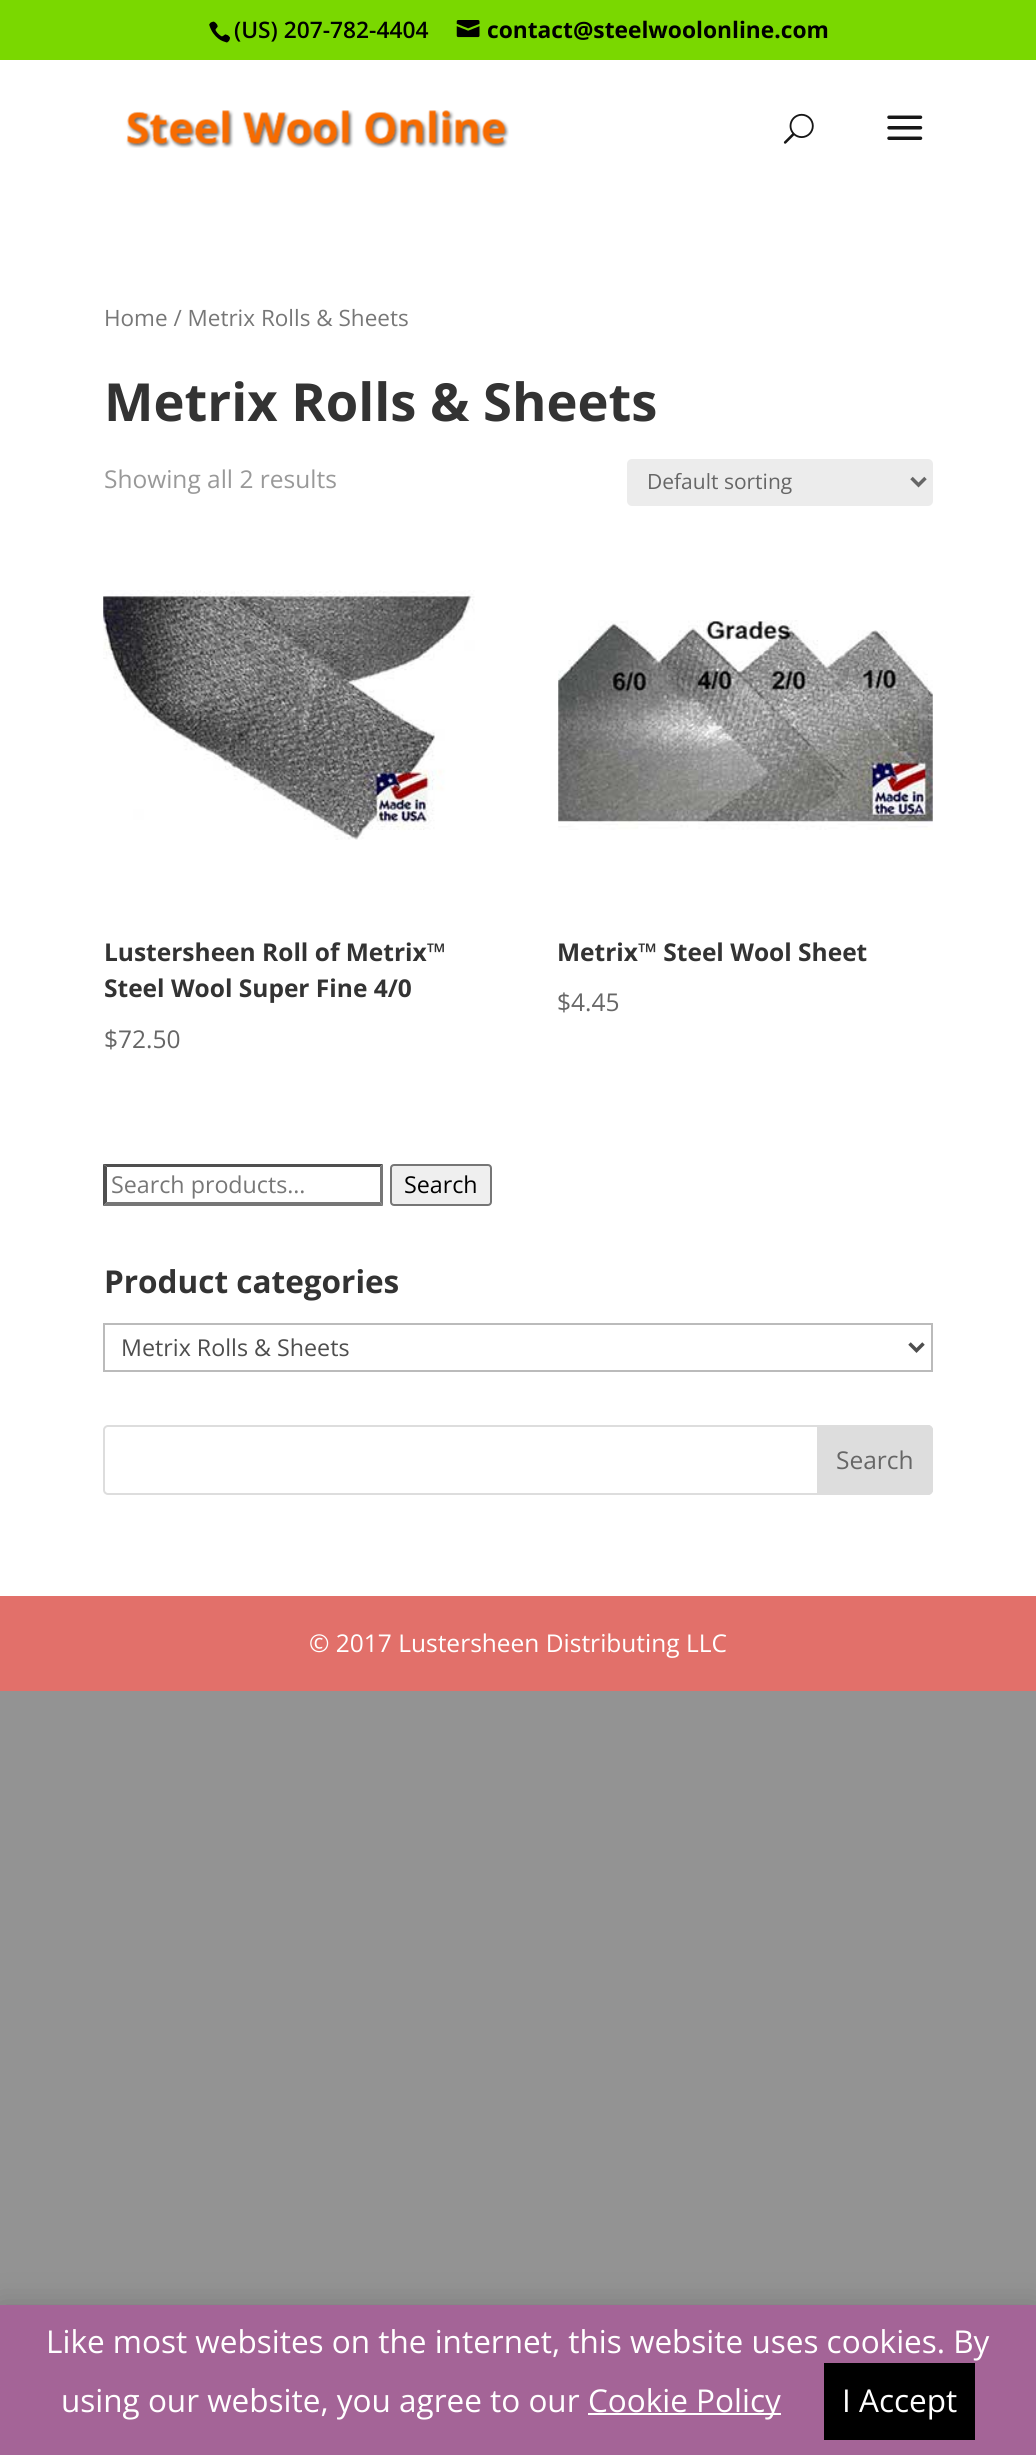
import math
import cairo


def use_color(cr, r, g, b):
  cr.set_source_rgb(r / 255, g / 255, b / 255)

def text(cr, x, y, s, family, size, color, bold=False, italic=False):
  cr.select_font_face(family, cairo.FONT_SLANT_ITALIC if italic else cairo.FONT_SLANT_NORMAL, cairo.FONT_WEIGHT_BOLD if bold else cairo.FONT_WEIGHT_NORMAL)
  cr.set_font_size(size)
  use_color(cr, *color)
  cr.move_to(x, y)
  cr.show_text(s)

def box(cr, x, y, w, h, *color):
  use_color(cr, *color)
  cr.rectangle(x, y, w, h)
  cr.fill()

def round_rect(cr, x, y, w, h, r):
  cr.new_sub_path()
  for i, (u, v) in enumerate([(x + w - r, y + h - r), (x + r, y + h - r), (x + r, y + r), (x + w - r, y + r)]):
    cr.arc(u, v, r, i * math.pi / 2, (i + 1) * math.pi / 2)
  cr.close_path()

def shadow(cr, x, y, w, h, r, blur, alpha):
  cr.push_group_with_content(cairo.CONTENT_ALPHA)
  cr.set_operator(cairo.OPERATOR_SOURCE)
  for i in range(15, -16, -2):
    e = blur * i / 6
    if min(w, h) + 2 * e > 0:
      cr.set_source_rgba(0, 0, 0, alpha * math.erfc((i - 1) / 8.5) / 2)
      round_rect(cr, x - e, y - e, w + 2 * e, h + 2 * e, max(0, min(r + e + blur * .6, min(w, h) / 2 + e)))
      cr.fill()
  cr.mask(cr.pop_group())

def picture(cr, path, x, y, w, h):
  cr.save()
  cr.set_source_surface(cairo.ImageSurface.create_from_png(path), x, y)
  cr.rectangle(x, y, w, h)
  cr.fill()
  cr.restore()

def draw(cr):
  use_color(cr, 147, 147, 147)
  cr.paint()
  box(cr, 0, 0, 1036, 60, 122, 216, 0)
  picture(cr, "img_01.png", 209, 21, 21, 22)
  picture(cr, "img_02.png", 456, 20, 24, 18)
  box(cr, 0, 60, 1036, 1536, 255, 255, 255)
  picture(cr, "img_03.png", 126, 110, 383, 38)
  picture(cr, "img_04.png", 783, 113, 31, 31)
  picture(cr, "img_05.png", 887, 115, 36, 25)
  use_color(cr, 236, 236, 236)
  round_rect(cr, 627, 459, 306, 47, 5)
  cr.fill()
  cr.new_path()
  cr.move_to(911.5, 478)
  cr.line_to(918.5, 485)
  cr.line_to(925.5, 478)
  use_color(cr, 102, 102, 102)
  cr.set_line_width(3.5)
  cr.stroke()
  picture(cr, "img_06.png", 103, 590, 372, 250)
  picture(cr, "img_07.png", 558, 620, 375, 210)
  use_color(cr, 79, 79, 79)
  cr.new_path()
  cr.move_to(103, 1164)
  cr.line_to(383, 1164)
  cr.line_to(380, 1167)
  cr.line_to(107, 1167)
  cr.close_path()
  cr.fill()
  use_color(cr, 118, 118, 118)
  cr.new_path()
  cr.move_to(383, 1164)
  cr.line_to(383, 1206)
  cr.line_to(380, 1202)
  cr.line_to(380, 1167)
  cr.close_path()
  cr.fill()
  cr.new_path()
  cr.move_to(383, 1206)
  cr.line_to(103, 1206)
  cr.line_to(107, 1202)
  cr.line_to(380, 1202)
  cr.close_path()
  cr.fill()
  use_color(cr, 79, 79, 79)
  cr.new_path()
  cr.move_to(103, 1206)
  cr.line_to(103, 1164)
  cr.line_to(107, 1167)
  cr.line_to(107, 1202)
  cr.close_path()
  cr.fill()
  use_color(cr, 239, 239, 239)
  round_rect(cr, 391, 1165, 100, 40, 3)
  cr.fill_preserve()
  use_color(cr, 118, 118, 118)
  cr.set_line_width(2)
  cr.stroke()
  cr.rectangle(104, 1324, 828, 47)
  use_color(cr, 187, 187, 187)
  cr.stroke()
  cr.new_path()
  cr.move_to(909.5, 1343.5)
  cr.line_to(916.5, 1350.5)
  cr.line_to(923.5, 1343.5)
  use_color(cr, 78, 78, 78)
  cr.set_line_width(3.5)
  cr.stroke()
  round_rect(cr, 104, 1426, 828, 68, 4)
  use_color(cr, 221, 221, 221)
  cr.set_line_width(2)
  cr.stroke()
  cr.new_path()
  cr.move_to(818, 1426)
  cr.line_to(928, 1426)
  cr.curve_to(930, 1426, 932, 1428, 932, 1430)
  cr.line_to(932, 1490)
  cr.curve_to(932, 1492, 930, 1494, 928, 1494)
  cr.line_to(818, 1494)
  cr.close_path()
  cr.fill_preserve()
  cr.stroke()
  box(cr, 0, 1596, 1036, 95, 226, 112, 106)
  use_color(cr, 0, 0, 0)
  shadow(cr, 0, 2307, 1036, 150, 0, 16, 0.2)
  box(cr, 0, 2305, 1036, 150, 164, 100, 151)
  box(cr, 588, 2413, 193, 2, 255, 255, 255)
  box(cr, 824, 2363, 151, 77, 0, 0, 0)
  text(cr, 234, 38, "(US) 207-782-4404", "Open Sans SemiBold", 22.75, (0, 0, 0))
  text(cr, 487, 38, "contact@steelwoolonline.com", "Open Sans", 22.75, (0, 0, 0), bold=True)
  text(cr, 104, 326, "Home / Metrix Rolls & Sheets", "Open Sans", 22.5, (119, 119, 119))
  text(cr, 104, 421, "Metrix Rolls & Sheets", "Open Sans", 52.5, (51, 51, 51), bold=True)
  text(cr, 104, 488, "Showing all 2 results", "Open Sans", 24.5, (153, 153, 153))
  text(cr, 647, 489, "Default sorting", "Open Sans", 21, (102, 102, 102))
  text(cr, 104, 961, "Lustersheen Roll of Metrix™", "Open Sans", 24.5, (51, 51, 51), bold=True)
  text(cr, 104, 997, "Steel Wool Super Fine 4/0", "Open Sans", 24.5, (51, 51, 51), bold=True)
  text(cr, 104, 1048, "$72.50", "Open Sans", 24.5, (102, 102, 102))
  text(cr, 557, 961, "Metrix™ Steel Wool Sheet", "Open Sans", 24.5, (51, 51, 51), bold=True)
  text(cr, 557, 1011, "$4.45", "Open Sans", 24.5, (102, 102, 102))
  text(cr, 111, 1193, "Search products…", "Open Sans", 23.25, (119, 119, 119))
  text(cr, 404, 1193, "Search", "Open Sans", 23.25, (0, 0, 0))
  text(cr, 104, 1293, "Product categories", "Open Sans", 31.5, (51, 51, 51), bold=True)
  text(cr, 121, 1356, "Metrix Rolls & Sheets", "Open Sans", 23.25, (78, 78, 78))
  text(cr, 836, 1469, "Search", "Open Sans", 24.5, (102, 102, 102))
  text(cr, 309, 1652, "© 2017 Lustersheen Distributing LLC", "Open Sans", 24.5, (255, 255, 255))
  text(cr, 46, 2353, "Like most websites on the internet, this website uses cookies. By", "Open Sans", 31.5, (255, 255, 255))
  text(cr, 61, 2412, "using our website, you agree to our", "Open Sans", 31.5, (255, 255, 255))
  text(cr, 588, 2412, "Cookie Policy", "Open Sans", 31.5, (255, 255, 255))
  text(cr, 842, 2412, "I Accept", "Open Sans", 31.5, (255, 255, 255))


surface = cairo.ImageSurface(cairo.FORMAT_RGB24, 1036, 2455)
cr = cairo.Context(surface)
options = cairo.FontOptions()
options.set_hint_metrics(cairo.HINT_METRICS_OFF)
options.set_hint_style(cairo.HINT_STYLE_NONE)
cr.set_font_options(options)
cr.set_miter_limit(4)
draw(cr)
surface.write_to_png("out.png")
